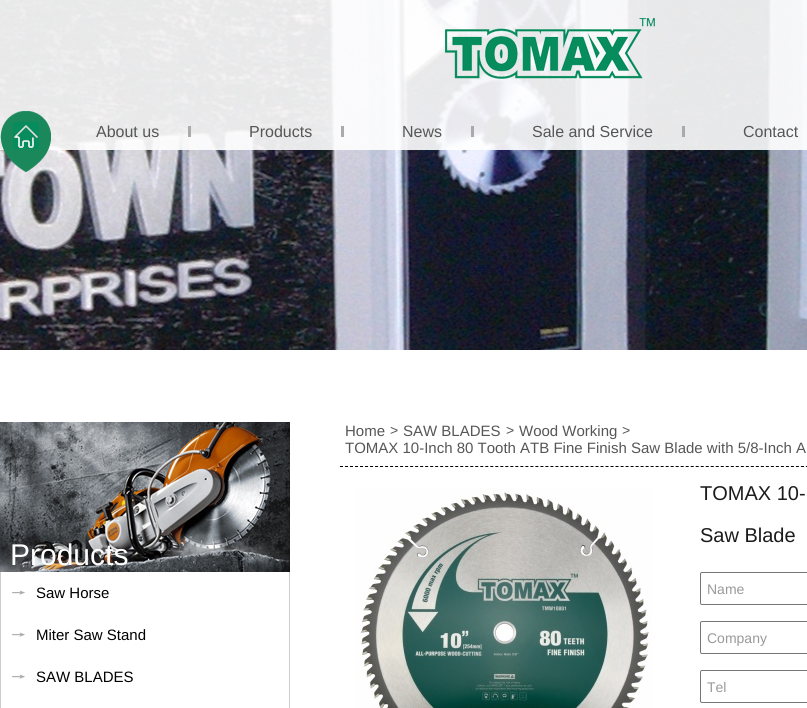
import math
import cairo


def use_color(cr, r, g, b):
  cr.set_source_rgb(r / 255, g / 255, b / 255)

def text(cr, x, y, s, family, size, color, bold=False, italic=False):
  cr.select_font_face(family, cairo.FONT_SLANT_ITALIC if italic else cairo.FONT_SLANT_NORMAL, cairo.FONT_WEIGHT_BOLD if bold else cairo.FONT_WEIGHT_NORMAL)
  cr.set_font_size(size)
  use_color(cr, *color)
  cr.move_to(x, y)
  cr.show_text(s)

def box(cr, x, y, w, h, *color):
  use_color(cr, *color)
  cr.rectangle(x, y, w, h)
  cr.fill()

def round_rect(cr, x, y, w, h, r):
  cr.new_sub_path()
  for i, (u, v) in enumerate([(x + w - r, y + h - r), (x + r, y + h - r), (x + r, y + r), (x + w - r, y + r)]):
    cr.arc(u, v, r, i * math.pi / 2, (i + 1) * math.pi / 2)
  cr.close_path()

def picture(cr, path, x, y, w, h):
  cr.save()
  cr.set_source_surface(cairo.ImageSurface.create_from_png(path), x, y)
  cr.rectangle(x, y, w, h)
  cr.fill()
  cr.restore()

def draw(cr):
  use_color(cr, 255, 255, 255)
  cr.paint()
  picture(cr, "img_01.png", 0, 0, 807, 350)
  cr.set_source_rgba(1, 1, 1, 0.9)
  cr.rectangle(0, 0, 807, 150)
  cr.fill()
  picture(cr, "img_02.png", 445, 18, 210, 61)
  picture(cr, "img_03.png", 0, 111, 51, 61)
  box(cr, 188, 126, 3, 11, 170, 170, 170)
  box(cr, 341, 126, 3, 11, 170, 170, 170)
  box(cr, 471, 126, 3, 11, 170, 170, 170)
  box(cr, 682, 126, 3, 11, 170, 170, 170)
  picture(cr, "img_04.png", 0, 422, 290, 150)
  box(cr, 289, 572, 1, 136, 204, 204, 204)
  box(cr, 0, 572, 1, 136, 204, 204, 204)
  picture(cr, "img_05.png", 12, 590, 13, 5)
  picture(cr, "img_05.png", 12, 632, 13, 5)
  picture(cr, "img_05.png", 12, 674, 13, 5)
  cr.new_path()
  cr.move_to(340, 466.5)
  cr.line_to(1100, 466.5)
  use_color(cr, 0, 0, 0)
  cr.set_line_width(1)
  cr.set_dash([3, 2.01])
  cr.stroke()
  picture(cr, "img_06.png", 356, 488, 296, 220)
  round_rect(cr, 700.5, 572.5, 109, 32, 1.5)
  use_color(cr, 118, 118, 118)
  cr.set_dash([])
  cr.stroke()
  round_rect(cr, 700.5, 621.5, 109, 32, 1.5)
  cr.stroke()
  round_rect(cr, 700.5, 670.5, 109, 32, 1.5)
  cr.stroke()
  text(cr, 96, 137, "About us", "Liberation Sans", 16, (86, 86, 86))
  text(cr, 249, 137, "Products", "Liberation Sans", 16, (86, 86, 86))
  text(cr, 402, 137, "News", "Liberation Sans", 16, (86, 86, 86))
  text(cr, 532, 137, "Sale and Service", "Liberation Sans", 16, (86, 86, 86))
  text(cr, 743, 137, "Contact", "Liberation Sans", 16, (86, 86, 86))
  text(cr, 10, 565, "Products", "Liberation Sans", 30, (255, 255, 255))
  text(cr, 36, 598, "Saw Horse", "Liberation Sans", 15, (0, 0, 0))
  text(cr, 36, 640, "Miter Saw Stand", "Liberation Sans", 15, (0, 0, 0))
  text(cr, 36, 682, "SAW BLADES", "Liberation Sans", 15, (0, 0, 0))
  text(cr, 345, 436, "Home", "Liberation Sans", 15, (86, 86, 86))
  text(cr, 390, 435, ">", "Liberation Sans", 14, (86, 86, 86))
  text(cr, 403, 436, "SAW BLADES", "Liberation Sans", 15, (86, 86, 86))
  text(cr, 506, 435, ">", "Liberation Sans", 14, (86, 86, 86))
  text(cr, 519, 436, "Wood Working", "Liberation Sans", 15, (86, 86, 86))
  text(cr, 622, 435, ">", "Liberation Sans", 14, (86, 86, 86))
  text(cr, 345, 453, "TOMAX 10-Inch 80 Tooth ATB Fine Finish Saw Blade with 5/8-Inch A", "Liberation Sans", 15, (86, 86, 86))
  text(cr, 700, 500, "TOMAX 10-", "Liberation Sans", 20, (27, 27, 27))
  text(cr, 700, 542, "Saw Blade", "Liberation Sans", 20, (27, 27, 27))
  text(cr, 707, 594, "Name", "Liberation Sans", 14, (153, 153, 153))
  text(cr, 707, 643, "Company", "Liberation Sans", 14, (153, 153, 153))
  text(cr, 707, 692, "Tel", "Liberation Sans", 14, (153, 153, 153))


surface = cairo.ImageSurface(cairo.FORMAT_RGB24, 807, 708)
cr = cairo.Context(surface)
options = cairo.FontOptions()
options.set_hint_metrics(cairo.HINT_METRICS_OFF)
options.set_hint_style(cairo.HINT_STYLE_NONE)
cr.set_font_options(options)
cr.set_miter_limit(4)
draw(cr)
surface.write_to_png("out.png")
